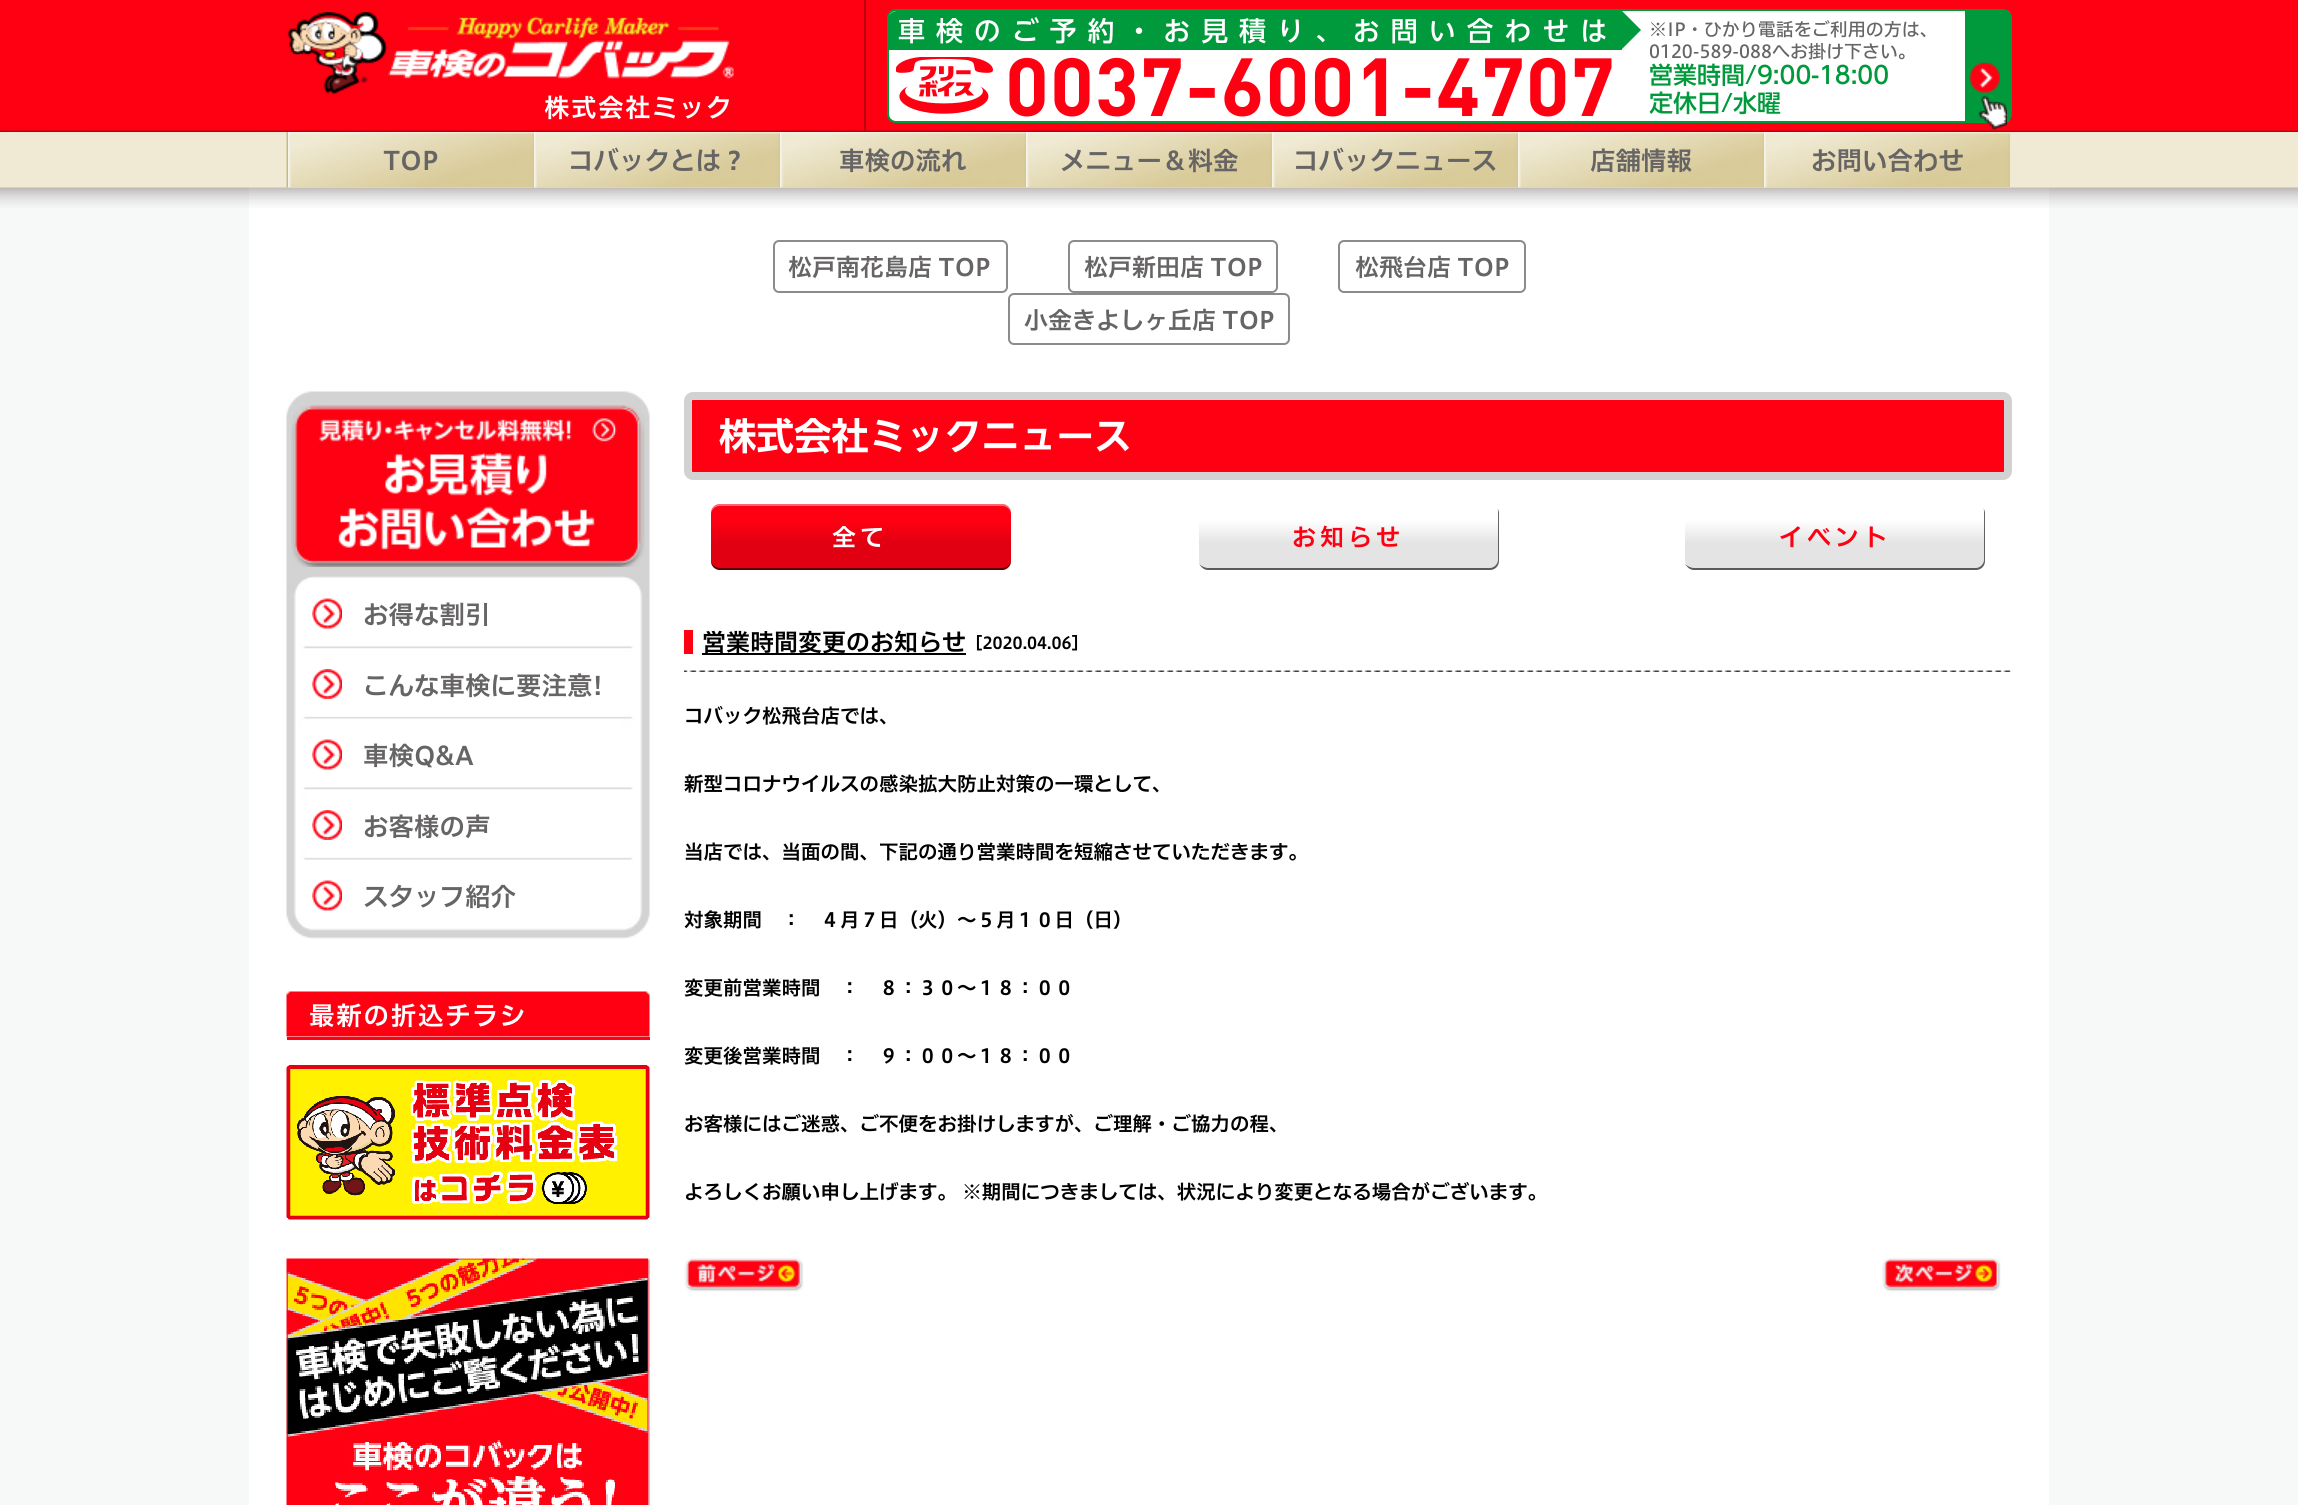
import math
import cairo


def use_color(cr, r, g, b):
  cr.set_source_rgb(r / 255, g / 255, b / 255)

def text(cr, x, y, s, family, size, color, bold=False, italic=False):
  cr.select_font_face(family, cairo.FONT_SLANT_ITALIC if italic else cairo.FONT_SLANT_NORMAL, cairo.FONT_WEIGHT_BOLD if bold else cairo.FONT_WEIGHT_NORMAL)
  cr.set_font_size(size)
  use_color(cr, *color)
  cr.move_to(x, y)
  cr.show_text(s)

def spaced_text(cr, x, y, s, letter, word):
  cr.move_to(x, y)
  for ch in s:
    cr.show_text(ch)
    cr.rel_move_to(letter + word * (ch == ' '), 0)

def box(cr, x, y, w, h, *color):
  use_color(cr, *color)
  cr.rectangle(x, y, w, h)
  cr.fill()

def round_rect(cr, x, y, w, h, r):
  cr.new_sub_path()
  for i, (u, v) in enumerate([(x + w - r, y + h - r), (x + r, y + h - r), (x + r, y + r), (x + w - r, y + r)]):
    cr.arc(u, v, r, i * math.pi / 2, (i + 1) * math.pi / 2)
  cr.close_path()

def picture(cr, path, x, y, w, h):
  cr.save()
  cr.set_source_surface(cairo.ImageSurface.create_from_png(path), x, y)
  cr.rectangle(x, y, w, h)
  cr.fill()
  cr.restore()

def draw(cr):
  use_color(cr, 247, 248, 248)
  cr.paint()
  picture(cr, "img_01.png", 0, 0, 2298, 132)
  box(cr, 864, 0, 2, 132, 185, 0, 11)
  picture(cr, "img_02.png", 287, 12, 447, 83)
  use_color(cr, 255, 255, 255)
  round_rect(cr, 888, 10, 1123, 112, 8)
  cr.fill_preserve()
  use_color(cr, 0, 153, 59)
  cr.stroke()
  cr.new_path()
  cr.move_to(897, 11)
  cr.line_to(1622, 11)
  cr.line_to(1622, 50)
  cr.line_to(888, 50)
  cr.line_to(888, 20)
  cr.curve_to(888, 15, 892, 11, 897, 11)
  cr.close_path()
  cr.fill()
  cr.new_path()
  cr.move_to(1621.5, 49.5)
  cr.line_to(1621.5, 10.5)
  cr.line_to(1641, 30)
  cr.close_path()
  cr.fill()
  picture(cr, "img_03.png", 896, 57, 97, 57)
  box(cr, 1965, 11, 45, 111, 0, 153, 59)
  picture(cr, "img_04.png", 1969, 62, 38, 68)
  box(cr, 249, 187, 1800, 1318, 255, 255, 255)
  picture(cr, "img_05.png", 0, 132, 2298, 76)
  picture(cr, "img_06.png", 286, 132, 2, 56)
  picture(cr, "img_07.png", 2008, 187, 2, 1)
  picture(cr, "img_08.png", 288, 132, 246, 56)
  picture(cr, "img_09.png", 534, 132, 246, 56)
  picture(cr, "img_10.png", 780, 132, 246, 56)
  picture(cr, "img_11.png", 1026, 132, 246, 56)
  picture(cr, "img_10.png", 1272, 132, 246, 56)
  picture(cr, "img_12.png", 1518, 132, 246, 56)
  picture(cr, "img_13.png", 1764, 132, 246, 56)
  round_rect(cr, 774, 241, 233, 51, 5)
  use_color(cr, 140, 139, 139)
  cr.stroke()
  round_rect(cr, 1069, 241, 208, 51, 5)
  cr.stroke()
  round_rect(cr, 1339, 241, 186, 51, 5)
  cr.stroke()
  round_rect(cr, 1009, 294, 280, 50, 5)
  cr.stroke()
  picture(cr, "img_14.png", 286, 391, 364, 548)
  picture(cr, "img_15.png", 291, 405, 354, 162)
  picture(cr, "img_16.png", 312, 598, 30, 31)
  picture(cr, "img_17.png", 312, 669, 30, 30)
  picture(cr, "img_16.png", 312, 739, 30, 31)
  picture(cr, "img_17.png", 312, 810, 30, 30)
  picture(cr, "img_16.png", 312, 880, 30, 31)
  picture(cr, "img_18.png", 286, 991, 364, 46)
  box(cr, 287, 1037, 363, 3, 255, 0, 18)
  picture(cr, "img_19.png", 286, 1065, 364, 155)
  picture(cr, "img_20.png", 286, 1258, 364, 247)
  round_rect(cr, 688, 396, 1320, 80, 5)
  cr.fill_preserve()
  use_color(cr, 211, 210, 211)
  cr.set_line_width(8)
  cr.stroke()
  gradient = cairo.LinearGradient(861, 504, 861, 570)
  gradient.add_color_stop_rgba(0, 1, 0, 0.071, 1)
  gradient.add_color_stop_rgba(0.24, 1, 0, 0.071, 1)
  gradient.add_color_stop_rgba(0.59, 0.882, 0, 0.071, 1)
  gradient.add_color_stop_rgba(1, 0.882, 0, 0.071, 1)
  cr.set_source(gradient)
  round_rect(cr, 711, 504, 300, 66, 9)
  cr.fill()
  cr.set_source_rgba(1, 1, 1, 0.4)
  cr.new_path()
  cr.move_to(720, 506)
  cr.line_to(1002, 506)
  cr.curve_to(1007, 506, 1011, 510, 1011, 514)
  cr.line_to(1011, 513)
  cr.curve_to(1011, 508, 1007, 504, 1002, 504)
  cr.line_to(720, 504)
  cr.curve_to(715, 504, 711, 508, 711, 513)
  cr.line_to(711, 514)
  cr.curve_to(711, 510, 715, 506, 720, 506)
  cr.close_path()
  cr.fill()
  cr.set_source_rgba(0, 0, 0, 0.6)
  cr.new_path()
  cr.move_to(711, 560)
  cr.line_to(711, 561)
  cr.curve_to(711, 566, 715, 570, 720, 570)
  cr.line_to(1002, 570)
  cr.curve_to(1007, 570, 1011, 566, 1011, 561)
  cr.line_to(1011, 560)
  cr.curve_to(1011, 564, 1007, 568, 1002, 568)
  cr.line_to(720, 568)
  cr.curve_to(715, 568, 711, 564, 711, 560)
  cr.close_path()
  cr.fill()
  gradient = cairo.LinearGradient(1349, 504, 1349, 570)
  gradient.add_color_stop_rgba(0, 1, 1, 1, 1)
  gradient.add_color_stop_rgba(0.24, 1, 1, 1, 1)
  gradient.add_color_stop_rgba(0.59, 0.894, 0.894, 0.894, 1)
  gradient.add_color_stop_rgba(1, 0.894, 0.894, 0.894, 1)
  cr.set_source(gradient)
  round_rect(cr, 1199, 504, 300, 66, 9)
  cr.fill()
  cr.set_source_rgba(1, 1, 1, 0.4)
  cr.new_path()
  cr.move_to(1208, 506)
  cr.line_to(1490, 506)
  cr.curve_to(1494, 506, 1498, 510, 1498, 514)
  cr.line_to(1498, 562)
  cr.curve_to(1498, 564, 1498, 565, 1497, 567)
  cr.curve_to(1498, 565, 1499, 563, 1499, 561)
  cr.line_to(1499, 513)
  cr.curve_to(1499, 508, 1495, 504, 1490, 504)
  cr.line_to(1208, 504)
  cr.curve_to(1204, 504, 1201, 507, 1199, 510)
  cr.curve_to(1201, 508, 1205, 506, 1208, 506)
  cr.close_path()
  cr.fill()
  cr.set_source_rgba(0, 0, 0, 0.6)
  cr.new_path()
  cr.move_to(1199, 564)
  cr.curve_to(1201, 567, 1204, 570, 1208, 570)
  cr.line_to(1490, 570)
  cr.curve_to(1495, 570, 1499, 566, 1499, 561)
  cr.line_to(1499, 513)
  cr.curve_to(1499, 511, 1498, 509, 1497, 507)
  cr.curve_to(1498, 509, 1498, 510, 1498, 512)
  cr.line_to(1498, 560)
  cr.curve_to(1498, 564, 1494, 568, 1490, 568)
  cr.line_to(1208, 568)
  cr.curve_to(1205, 568, 1201, 566, 1199, 564)
  cr.close_path()
  cr.fill()
  gradient = cairo.LinearGradient(1835, 504, 1835, 570)
  gradient.add_color_stop_rgba(0, 1, 1, 1, 1)
  gradient.add_color_stop_rgba(0.24, 1, 1, 1, 1)
  gradient.add_color_stop_rgba(0.59, 0.894, 0.894, 0.894, 1)
  gradient.add_color_stop_rgba(1, 0.894, 0.894, 0.894, 1)
  cr.set_source(gradient)
  round_rect(cr, 1685, 504, 300, 66, 9)
  cr.fill()
  cr.set_source_rgba(1, 1, 1, 0.4)
  cr.new_path()
  cr.move_to(1694, 506)
  cr.line_to(1976, 506)
  cr.curve_to(1980, 506, 1984, 510, 1984, 514)
  cr.line_to(1984, 562)
  cr.curve_to(1984, 564, 1984, 565, 1983, 567)
  cr.curve_to(1984, 565, 1985, 563, 1985, 561)
  cr.line_to(1985, 513)
  cr.curve_to(1985, 508, 1981, 504, 1976, 504)
  cr.line_to(1694, 504)
  cr.curve_to(1690, 504, 1687, 507, 1685, 510)
  cr.curve_to(1687, 508, 1691, 506, 1694, 506)
  cr.close_path()
  cr.fill()
  cr.set_source_rgba(0, 0, 0, 0.6)
  cr.new_path()
  cr.move_to(1685, 564)
  cr.curve_to(1687, 567, 1690, 570, 1694, 570)
  cr.line_to(1976, 570)
  cr.curve_to(1981, 570, 1985, 566, 1985, 561)
  cr.line_to(1985, 513)
  cr.curve_to(1985, 511, 1984, 509, 1983, 507)
  cr.curve_to(1984, 509, 1984, 510, 1984, 512)
  cr.line_to(1984, 560)
  cr.curve_to(1984, 564, 1980, 568, 1976, 568)
  cr.line_to(1694, 568)
  cr.curve_to(1691, 568, 1687, 566, 1685, 564)
  cr.close_path()
  cr.fill()
  picture(cr, "img_21.png", 684, 670, 1327, 2)
  box(cr, 684, 630, 9, 24, 255, 0, 18)
  box(cr, 702, 653, 264, 2, 0, 0, 0)
  picture(cr, "img_22.png", 684, 1257, 120, 35)
  picture(cr, "img_23.png", 1882, 1257, 119, 35)
  cr.select_font_face("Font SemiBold")
  cr.set_font_size(25.5)
  use_color(cr, 255, 255, 255)
  spaced_text(cr, 544, 117, "株式会社ミック", 1.5, 0)
  cr.select_font_face("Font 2 Medium")
  cr.set_font_size(27)
  spaced_text(cr, 898, 41, "車検のご予約・お見積り、お問い合わせは", 10.9, 0)
  cr.select_font_face("DIN", cairo.FONT_SLANT_NORMAL, cairo.FONT_WEIGHT_BOLD)
  cr.set_font_size(81)
  use_color(cr, 255, 0, 18)
  spaced_text(cr, 1005, 116, "0037-6001-4707", 1, 0)
  text(cr, 1649, 36, "※IP・ひかり電話をご利用の方は、", "Font Medium", 18, (102, 100, 100))
  text(cr, 1649, 58, "0120-589-088へお掛け下さい。", "Font Medium", 18, (102, 100, 100))
  text(cr, 1649, 84, "営業時間/9:00-18:00", "Font 2 Medium", 24, (0, 153, 59))
  text(cr, 1649, 112, "定休日/水曜", "Font 2 Medium", 24, (0, 153, 59))
  text(cr, 383, 170, "TOP", "Font SemiBold", 25.5, (102, 100, 100))
  text(cr, 568, 170, "コバックとは？", "Font SemiBold", 25.5, (102, 100, 100))
  text(cr, 839, 170, "車検の流れ", "Font SemiBold", 25.5, (102, 100, 100))
  text(cr, 1060, 170, "メニュー＆料金", "Font SemiBold", 25.5, (102, 100, 100))
  text(cr, 1293, 170, "コバックニュース", "Font SemiBold", 25.5, (102, 100, 100))
  text(cr, 1590, 170, "店舗情報", "Font SemiBold", 25.5, (102, 100, 100))
  text(cr, 1811, 170, "お問い合わせ", "Font SemiBold", 25.5, (102, 100, 100))
  text(cr, 788, 276, "松戸南花島店 TOP", "Font SemiBold", 24, (102, 100, 100))
  text(cr, 1084, 276, "松戸新田店 TOP", "Font SemiBold", 24, (102, 100, 100))
  text(cr, 1355, 276, "松飛台店 TOP", "Font SemiBold", 24, (102, 100, 100))
  text(cr, 1024, 329, "小金きよしヶ丘店 TOP", "Font SemiBold", 24, (102, 100, 100))
  text(cr, 363, 624, "お得な割引", "Font SemiBold", 25.5, (102, 100, 100))
  text(cr, 363, 695, "こんな車検に要注意!", "Font SemiBold", 25.5, (102, 100, 100))
  text(cr, 363, 765, "車検Q&A", "Font SemiBold", 25.5, (102, 100, 100))
  text(cr, 363, 836, "お客様の声", "Font SemiBold", 25.5, (102, 100, 100))
  text(cr, 363, 906, "スタッフ紹介", "Font SemiBold", 25.5, (102, 100, 100))
  use_color(cr, 255, 255, 255)
  spaced_text(cr, 309, 1025, "最新の折込チラシ", 1.75, 0)
  text(cr, 719, 450, "株式会社ミックニュース", "Font 2 SemiBold", 37.5, (255, 255, 255))
  cr.select_font_face("Font SemiBold")
  cr.set_font_size(24)
  spaced_text(cr, 832, 546, "全て", 4, 0)
  use_color(cr, 255, 0, 18)
  spaced_text(cr, 1292, 546, "お知らせ", 4, 0)
  spaced_text(cr, 1779, 546, "イベント", 4, 0)
  text(cr, 702, 651, "営業時間変更のお知らせ", "Font SemiBold", 24, (0, 0, 0))
  text(cr, 966, 649, "［2020.04.06］", "Font SemiBold", 16.5, (0, 0, 0))
  text(cr, 684, 723, "コバック松飛台店では、", "Font SemiBold", 19.5, (0, 0, 0))
  text(cr, 684, 791, "新型コロナウイルスの感染拡大防止対策の一環として、", "Font SemiBold", 19.5, (0, 0, 0))
  text(cr, 684, 859, "当店では、当面の間、下記の通り営業時間を短縮させていただきます。", "Font SemiBold", 19.5, (0, 0, 0))
  text(cr, 684, 927, "対象期間　：　４月７日（火）～５月１０日（日）", "Font SemiBold", 19.5, (0, 0, 0))
  text(cr, 684, 995, "変更前営業時間　：　８：３０～１８：００", "Font SemiBold", 19.5, (0, 0, 0))
  text(cr, 684, 1063, "変更後営業時間　：　９：００～１８：００", "Font SemiBold", 19.5, (0, 0, 0))
  text(cr, 684, 1131, "お客様にはご迷惑、ご不便をお掛けしますが、ご理解・ご協力の程、", "Font SemiBold", 19.5, (0, 0, 0))
  text(cr, 684, 1199, "よろしくお願い申し上げます。 ※期間につきましては、状況により変更となる場合がございます。", "Font SemiBold", 19.5, (0, 0, 0))


surface = cairo.ImageSurface(cairo.FORMAT_RGB24, 2298, 1505)
cr = cairo.Context(surface)
options = cairo.FontOptions()
options.set_hint_metrics(cairo.HINT_METRICS_OFF)
options.set_hint_style(cairo.HINT_STYLE_NONE)
cr.set_font_options(options)
cr.set_miter_limit(4)
draw(cr)
surface.write_to_png("out.png")
